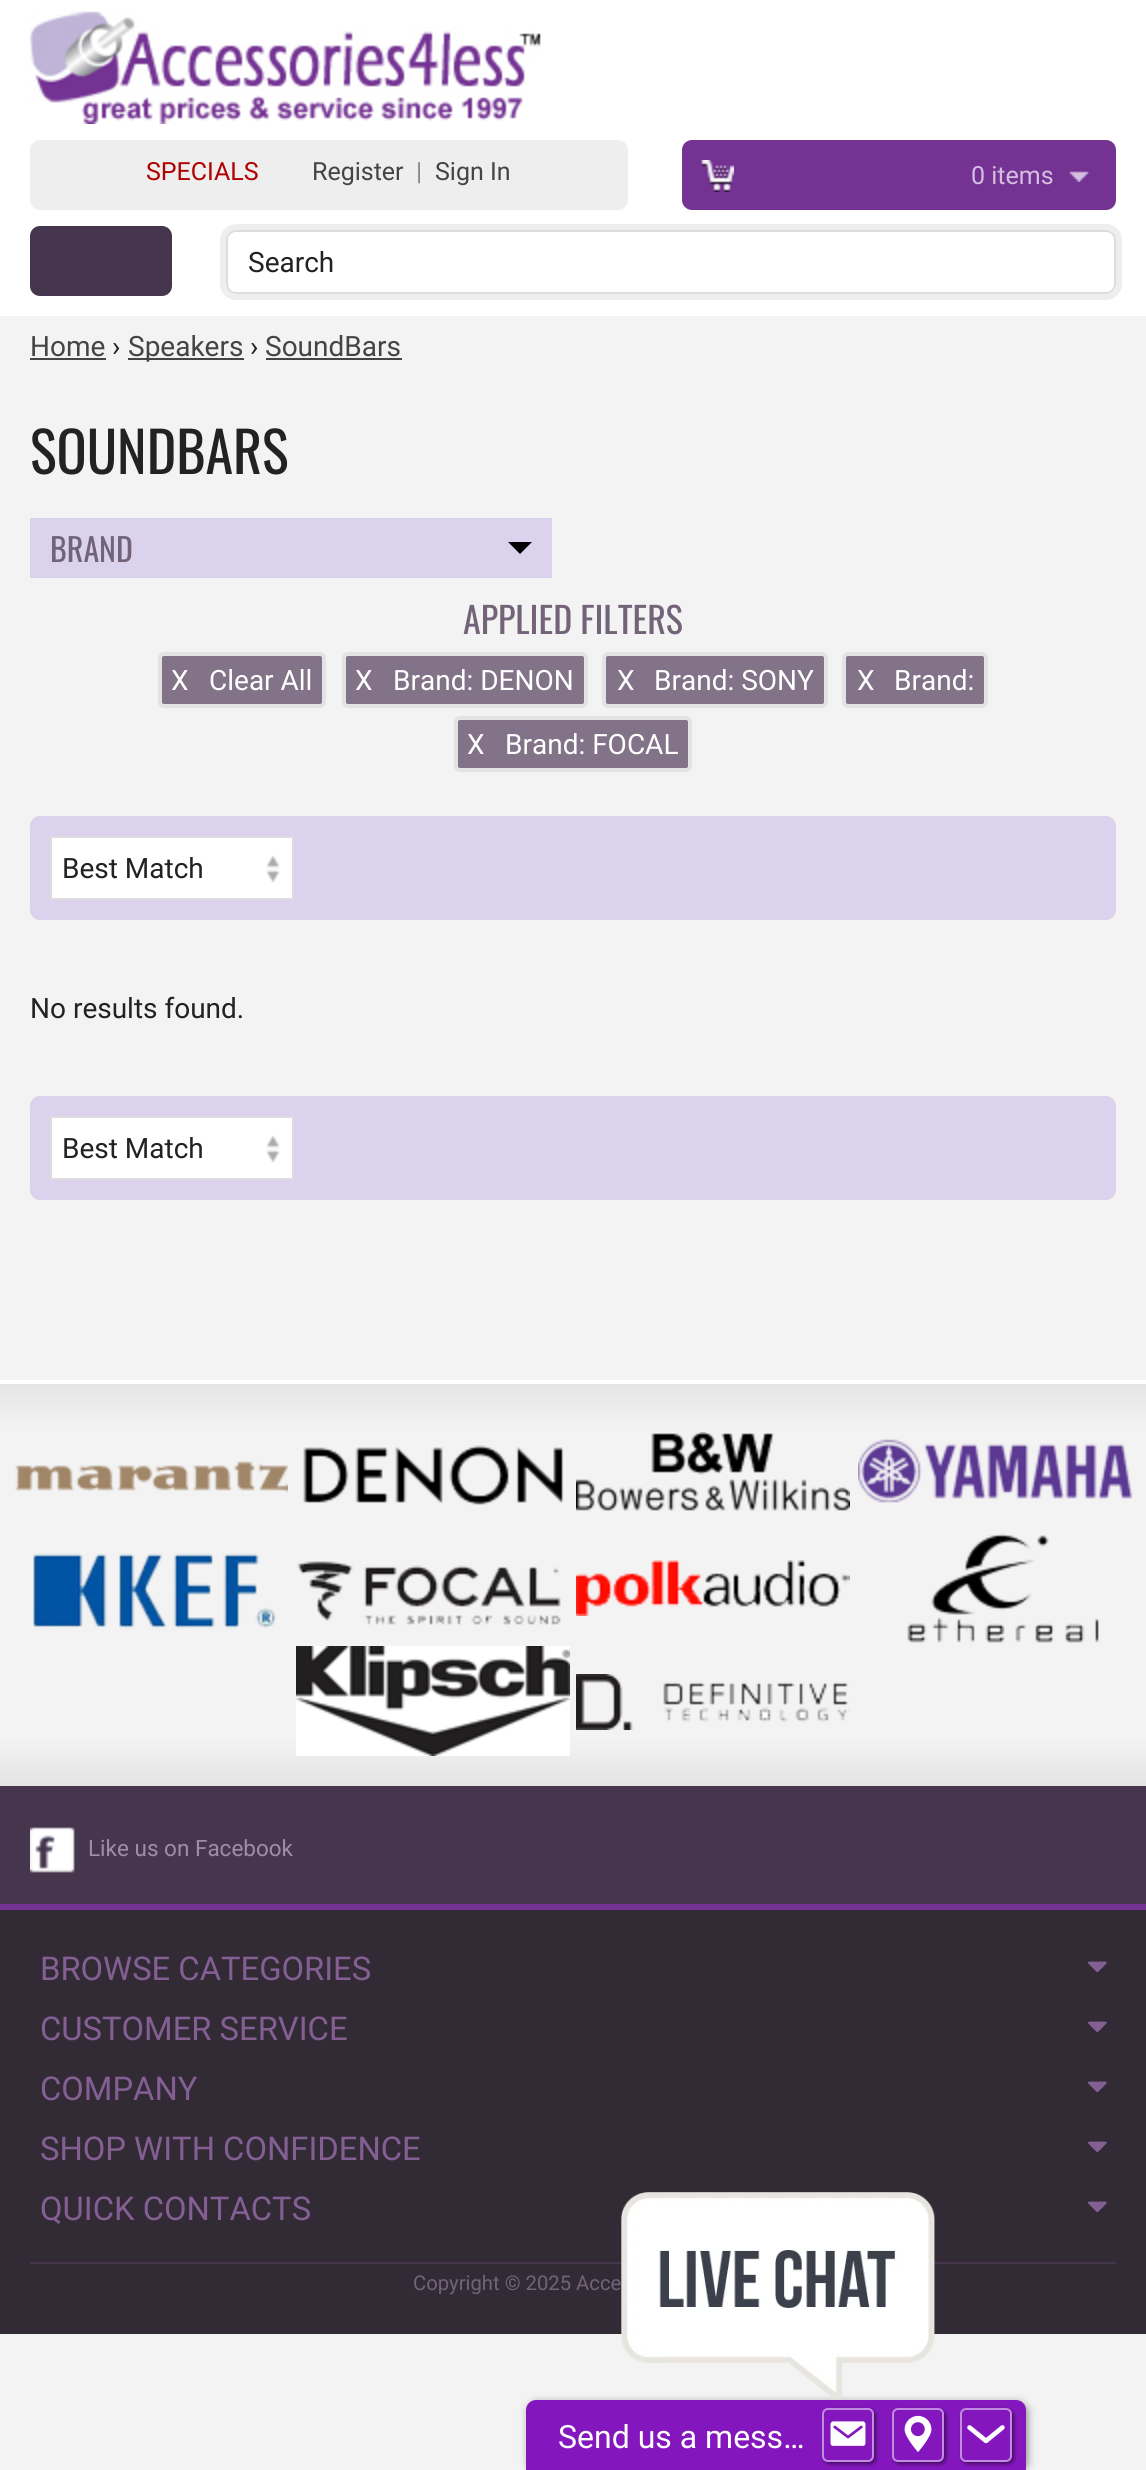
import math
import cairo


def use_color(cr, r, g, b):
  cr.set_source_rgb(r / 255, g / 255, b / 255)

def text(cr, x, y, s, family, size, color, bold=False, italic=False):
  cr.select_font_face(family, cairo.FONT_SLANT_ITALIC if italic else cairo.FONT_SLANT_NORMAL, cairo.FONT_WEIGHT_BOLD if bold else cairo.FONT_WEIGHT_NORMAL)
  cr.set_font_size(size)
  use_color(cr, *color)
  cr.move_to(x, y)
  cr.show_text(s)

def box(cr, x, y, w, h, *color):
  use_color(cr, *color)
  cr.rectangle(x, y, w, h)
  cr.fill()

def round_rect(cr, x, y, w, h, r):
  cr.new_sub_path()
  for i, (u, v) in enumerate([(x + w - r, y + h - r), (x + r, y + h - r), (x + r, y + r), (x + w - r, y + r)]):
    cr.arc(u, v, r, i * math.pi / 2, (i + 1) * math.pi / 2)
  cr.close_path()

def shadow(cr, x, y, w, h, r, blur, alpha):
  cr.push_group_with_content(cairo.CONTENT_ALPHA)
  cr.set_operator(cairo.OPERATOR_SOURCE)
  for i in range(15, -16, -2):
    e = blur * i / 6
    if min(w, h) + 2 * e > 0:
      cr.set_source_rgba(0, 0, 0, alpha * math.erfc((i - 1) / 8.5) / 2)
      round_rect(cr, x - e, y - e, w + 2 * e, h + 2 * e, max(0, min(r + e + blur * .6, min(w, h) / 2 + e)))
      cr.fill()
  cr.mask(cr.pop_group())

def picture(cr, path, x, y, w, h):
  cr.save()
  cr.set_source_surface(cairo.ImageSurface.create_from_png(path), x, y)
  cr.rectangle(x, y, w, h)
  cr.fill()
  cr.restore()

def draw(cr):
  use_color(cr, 243, 243, 243)
  cr.paint()
  box(cr, 0, 0, 1146, 316, 255, 255, 255)
  picture(cr, "img_01.png", 30, 11, 511, 113)
  use_color(cr, 238, 238, 238)
  round_rect(cr, 30, 140, 598, 70, 10)
  cr.fill()
  use_color(cr, 116, 50, 147)
  round_rect(cr, 682, 140, 434, 70, 10)
  cr.fill()
  picture(cr, "img_02.png", 701, 160, 33, 32)
  picture(cr, "img_03.png", 1069, 171, 20, 11)
  use_color(cr, 70, 54, 77)
  round_rect(cr, 30, 226, 142, 70, 10)
  cr.fill()
  round_rect(cr, 223, 227, 896, 70, 13)
  use_color(cr, 238, 238, 238)
  cr.set_line_width(6)
  cr.stroke()
  use_color(cr, 255, 255, 255)
  round_rect(cr, 227, 231, 888, 62, 9)
  cr.fill_preserve()
  use_color(cr, 221, 221, 221)
  cr.set_line_width(2)
  cr.stroke()
  box(cr, 30, 358, 76, 2, 68, 68, 68)
  box(cr, 128, 358, 116, 2, 68, 68, 68)
  box(cr, 266, 358, 136, 2, 68, 68, 68)
  box(cr, 30, 518, 522, 60, 219, 211, 237)
  use_color(cr, 0, 0, 0)
  cr.new_path()
  cr.move_to(508, 542)
  cr.line_to(532, 542)
  cr.line_to(520, 554)
  cr.close_path()
  cr.fill()
  use_color(cr, 130, 115, 136)
  round_rect(cr, 160, 654, 164, 52, 4)
  cr.fill_preserve()
  use_color(cr, 227, 227, 227)
  cr.set_line_width(4)
  cr.stroke()
  use_color(cr, 130, 115, 136)
  round_rect(cr, 344, 654, 242, 52, 4)
  cr.fill_preserve()
  use_color(cr, 227, 227, 227)
  cr.stroke()
  use_color(cr, 130, 115, 136)
  round_rect(cr, 604, 654, 222, 52, 4)
  cr.fill_preserve()
  use_color(cr, 227, 227, 227)
  cr.stroke()
  use_color(cr, 130, 115, 136)
  round_rect(cr, 844, 654, 142, 52, 4)
  cr.fill_preserve()
  use_color(cr, 227, 227, 227)
  cr.stroke()
  use_color(cr, 130, 115, 136)
  round_rect(cr, 456, 718, 234, 52, 4)
  cr.fill_preserve()
  use_color(cr, 227, 227, 227)
  cr.stroke()
  use_color(cr, 219, 211, 237)
  round_rect(cr, 30, 816, 1086, 104, 10)
  cr.fill()
  box(cr, 52, 838, 240, 60, 255, 255, 255)
  picture(cr, "img_04.png", 266, 855, 14, 28)
  cr.rectangle(51, 837, 242, 62)
  use_color(cr, 221, 221, 221)
  cr.set_line_width(2)
  cr.stroke()
  use_color(cr, 219, 211, 237)
  round_rect(cr, 30, 1096, 1086, 104, 10)
  cr.fill()
  box(cr, 52, 1118, 240, 60, 255, 255, 255)
  picture(cr, "img_04.png", 266, 1135, 14, 28)
  cr.rectangle(51, 1117, 242, 62)
  use_color(cr, 221, 221, 221)
  cr.stroke()
  gradient = cairo.LinearGradient(573, 1384, 573, 1786)
  gradient.add_color_stop_rgba(0, 0.898, 0.898, 0.898, 1)
  gradient.add_color_stop_rgba(0.11, 0.953, 0.953, 0.953, 1)
  gradient.add_color_stop_rgba(0.88, 0.953, 0.953, 0.953, 1)
  gradient.add_color_stop_rgba(0.99, 0.898, 0.898, 0.898, 1)
  cr.set_source(gradient)
  cr.rectangle(0, 1384, 1146, 402)
  cr.fill()
  box(cr, 0, 1380, 1146, 4, 255, 255, 255)
  picture(cr, "img_05.png", 15, 1461, 273, 32)
  picture(cr, "img_06.png", 303, 1445, 261, 60)
  picture(cr, "img_07.png", 576, 1432, 274, 79)
  picture(cr, "img_08.png", 858, 1439, 274, 64)
  picture(cr, "img_09.png", 33, 1553, 244, 76)
  picture(cr, "img_10.png", 297, 1561, 264, 64)
  picture(cr, "img_11.png", 576, 1560, 274, 56)
  picture(cr, "img_12.png", 907, 1533, 192, 110)
  picture(cr, "img_13.png", 296, 1646, 274, 110)
  picture(cr, "img_14.png", 576, 1674, 274, 56)
  box(cr, 0, 1786, 1146, 118, 70, 54, 77)
  picture(cr, "img_15.png", 30, 1827, 45, 46)
  box(cr, 0, 1910, 1146, 424, 50, 43, 53)
  box(cr, 0, 1904, 1146, 6, 115, 51, 147)
  picture(cr, "img_16.png", 1088, 1961, 19, 12)
  picture(cr, "img_16.png", 1088, 2021, 19, 12)
  picture(cr, "img_16.png", 1088, 2081, 19, 12)
  picture(cr, "img_16.png", 1088, 2141, 19, 12)
  picture(cr, "img_16.png", 1088, 2201, 19, 12)
  box(cr, 30, 2262, 1086, 2, 70, 54, 77)
  use_color(cr, 0, 0, 0)
  shadow(cr, 528, 2402, 500, 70, 10, 4, 0.4)
  picture(cr, "img_17.png", 621, 2192, 314, 206)
  use_color(cr, 131, 23, 189)
  cr.new_path()
  cr.move_to(536, 2400)
  cr.line_to(1016, 2400)
  cr.curve_to(1021.5, 2400, 1026, 2404.5, 1026, 2410)
  cr.line_to(1026, 2470)
  cr.line_to(526, 2470)
  cr.line_to(526, 2410)
  cr.curve_to(526, 2404.5, 530.5, 2400, 536, 2400)
  cr.close_path()
  cr.fill()
  cr.save()
  cr.set_fill_rule(cairo.FILL_RULE_EVEN_ODD)
  cr.new_path()
  cr.move_to(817, 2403)
  cr.line_to(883, 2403)
  cr.line_to(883, 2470)
  cr.line_to(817, 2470)
  cr.close_path()
  cr.move_to(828, 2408)
  cr.line_to(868, 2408)
  cr.curve_to(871.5, 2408, 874, 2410.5, 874, 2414)
  cr.line_to(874, 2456)
  cr.curve_to(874, 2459.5, 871.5, 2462, 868, 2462)
  cr.line_to(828, 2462)
  cr.curve_to(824.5, 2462, 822, 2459.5, 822, 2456)
  cr.line_to(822, 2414)
  cr.curve_to(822, 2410.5, 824.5, 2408, 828, 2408)
  cr.close_path()
  cr.clip()
  use_color(cr, 0, 0, 0)
  shadow(cr, 824, 2410, 52, 54, 6, 2, 0.5)
  cr.restore()
  round_rect(cr, 823, 2409, 50, 52, 5)
  cr.set_source_rgba(1, 1, 1, 0.5)
  cr.stroke()
  picture(cr, "img_18.png", 830, 2421, 36, 25)
  cr.save()
  cr.set_fill_rule(cairo.FILL_RULE_EVEN_ODD)
  cr.new_path()
  cr.move_to(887, 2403)
  cr.line_to(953, 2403)
  cr.line_to(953, 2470)
  cr.line_to(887, 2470)
  cr.close_path()
  cr.move_to(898, 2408)
  cr.line_to(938, 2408)
  cr.curve_to(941.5, 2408, 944, 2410.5, 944, 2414)
  cr.line_to(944, 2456)
  cr.curve_to(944, 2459.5, 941.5, 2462, 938, 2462)
  cr.line_to(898, 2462)
  cr.curve_to(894.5, 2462, 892, 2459.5, 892, 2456)
  cr.line_to(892, 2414)
  cr.curve_to(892, 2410.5, 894.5, 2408, 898, 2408)
  cr.close_path()
  cr.clip()
  use_color(cr, 0, 0, 0)
  shadow(cr, 894, 2410, 52, 54, 6, 2, 0.5)
  cr.restore()
  round_rect(cr, 893, 2409, 50, 52, 5)
  cr.stroke()
  picture(cr, "img_19.png", 904, 2415, 28, 37)
  cr.save()
  cr.set_fill_rule(cairo.FILL_RULE_EVEN_ODD)
  cr.new_path()
  cr.move_to(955, 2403)
  cr.line_to(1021, 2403)
  cr.line_to(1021, 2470)
  cr.line_to(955, 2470)
  cr.close_path()
  cr.move_to(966, 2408)
  cr.line_to(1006, 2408)
  cr.curve_to(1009.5, 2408, 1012, 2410.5, 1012, 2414)
  cr.line_to(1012, 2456)
  cr.curve_to(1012, 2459.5, 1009.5, 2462, 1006, 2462)
  cr.line_to(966, 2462)
  cr.curve_to(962.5, 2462, 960, 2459.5, 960, 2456)
  cr.line_to(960, 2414)
  cr.curve_to(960, 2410.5, 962.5, 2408, 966, 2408)
  cr.close_path()
  cr.clip()
  use_color(cr, 0, 0, 0)
  shadow(cr, 962, 2410, 52, 54, 6, 2, 0.5)
  cr.restore()
  round_rect(cr, 961, 2409, 50, 52, 5)
  cr.stroke()
  picture(cr, "img_20.png", 967, 2425, 38, 19)
  text(cr, 146, 180, "SPECIALS", "Roboto", 25, (176, 0, 0))
  text(cr, 312, 180, "Register", "Roboto", 25, (68, 68, 68))
  text(cr, 416, 180, "|", "Roboto", 25, (136, 136, 136))
  text(cr, 435, 180, "Sign In", "Roboto", 25, (68, 68, 68))
  text(cr, 971, 184, "0 items", "Roboto", 25, (213, 191, 224))
  text(cr, 248, 272, "Search", "Roboto", 28, (34, 34, 34))
  text(cr, 30, 356, "Home", "Roboto", 28, (68, 68, 68))
  text(cr, 112, 356, "›", "Roboto", 28, (34, 34, 34))
  text(cr, 128, 356, "Speakers", "Roboto", 28, (68, 68, 68))
  text(cr, 250, 356, "›", "Roboto", 28, (34, 34, 34))
  text(cr, 265, 356, "SoundBars", "Roboto", 28, (68, 68, 68))
  text(cr, 30, 474, "SOUNDBARS", "Oswald", 56, (34, 34, 34))
  text(cr, 50, 562, "BRAND", "Oswald", 32, (114, 99, 121))
  text(cr, 463, 634, "APPLIED FILTERS", "Oswald", 36, (114, 99, 121))
  text(cr, 171, 690, "X", "Roboto", 28, (255, 255, 255))
  text(cr, 209, 690, "Clear All", "Roboto", 28, (255, 255, 255))
  text(cr, 355, 690, "X", "Roboto", 28, (255, 255, 255))
  text(cr, 393, 690, "Brand: DENON", "Roboto", 28, (255, 255, 255))
  text(cr, 617, 690, "X", "Roboto", 28, (255, 255, 255))
  text(cr, 654, 690, "Brand: SONY", "Roboto", 28, (255, 255, 255))
  text(cr, 857, 690, "X", "Roboto", 28, (255, 255, 255))
  text(cr, 894, 690, "Brand:", "Roboto", 28, (255, 255, 255))
  text(cr, 467, 754, "X", "Roboto", 28, (255, 255, 255))
  text(cr, 505, 754, "Brand: FOCAL", "Roboto", 28, (255, 255, 255))
  text(cr, 62, 878, "Best Match", "Roboto", 28, (34, 34, 34))
  text(cr, 30, 1018, "No results found.", "Roboto", 28, (34, 34, 34))
  text(cr, 62, 1158, "Best Match", "Roboto", 28, (34, 34, 34))
  text(cr, 88, 1856, "Like us on Facebook", "Roboto", 22.5, (161, 139, 171))
  text(cr, 40, 1980, "BROWSE CATEGORIES", "Roboto", 32.75, (131, 95, 147))
  text(cr, 40, 2040, "CUSTOMER SERVICE", "Roboto", 32.75, (131, 95, 147))
  text(cr, 40, 2100, "COMPANY", "Roboto", 32.75, (131, 95, 147))
  text(cr, 40, 2160, "SHOP WITH CONFIDENCE", "Roboto", 32.75, (131, 95, 147))
  text(cr, 40, 2220, "QUICK CONTACTS", "Roboto", 32.75, (131, 95, 147))
  text(cr, 413, 2290, "Copyright © 2025 Acce", "Roboto", 20.25, (114, 99, 121))
  text(cr, 558, 2448, "Send us a mess…", "Roboto", 32, (255, 255, 255))


surface = cairo.ImageSurface(cairo.FORMAT_RGB24, 1146, 2470)
cr = cairo.Context(surface)
options = cairo.FontOptions()
options.set_hint_metrics(cairo.HINT_METRICS_OFF)
options.set_hint_style(cairo.HINT_STYLE_NONE)
cr.set_font_options(options)
cr.set_miter_limit(4)
draw(cr)
surface.write_to_png("out.png")
